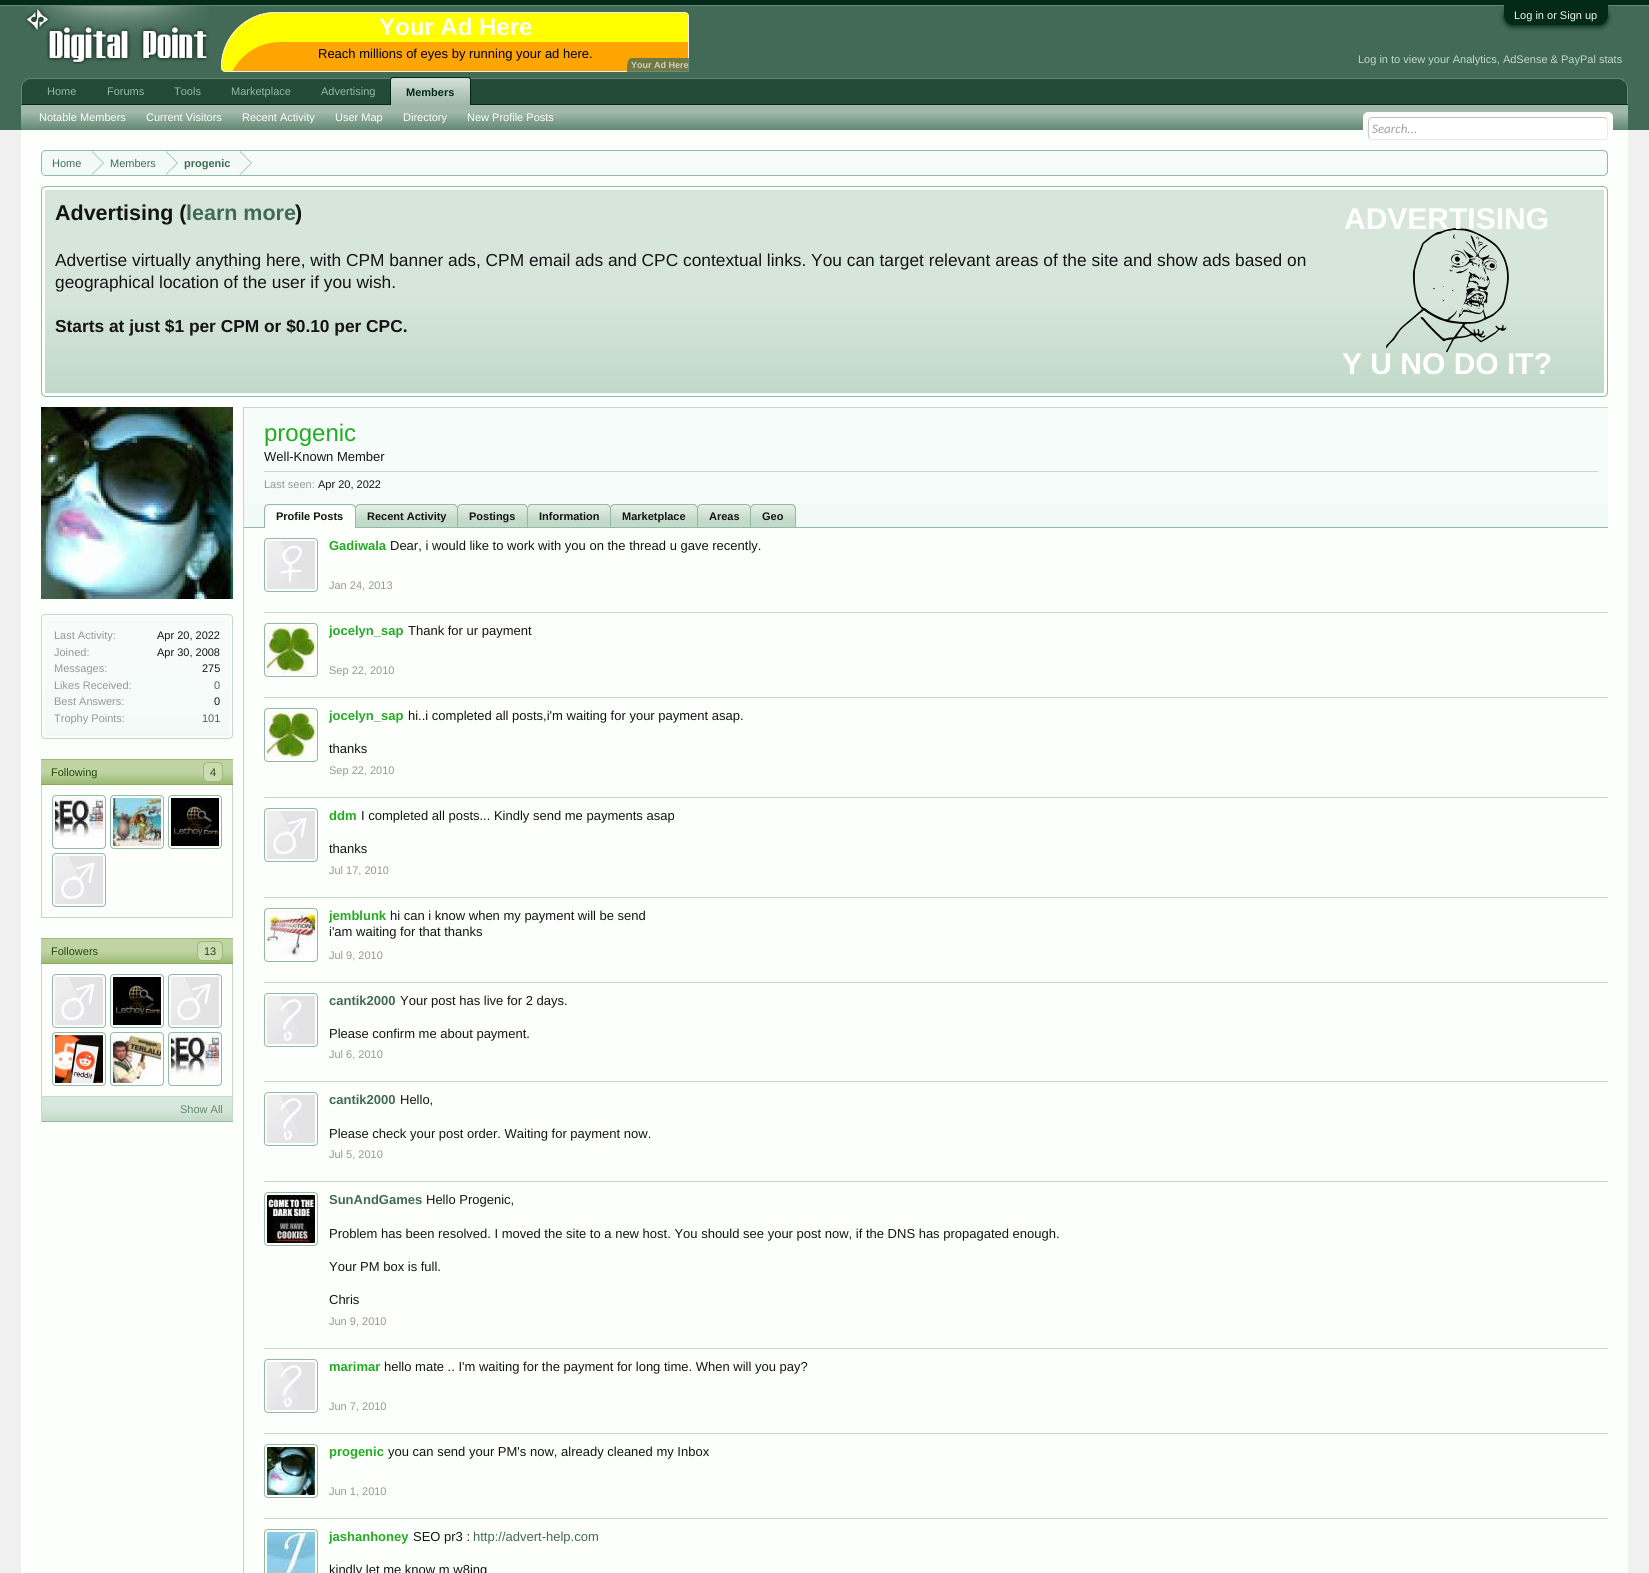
import math
import cairo


def use_color(cr, r, g, b):
  cr.set_source_rgb(r / 255, g / 255, b / 255)

def text(cr, x, y, s, family, size, color, bold=False, italic=False):
  cr.select_font_face(family, cairo.FONT_SLANT_ITALIC if italic else cairo.FONT_SLANT_NORMAL, cairo.FONT_WEIGHT_BOLD if bold else cairo.FONT_WEIGHT_NORMAL)
  cr.set_font_size(size)
  use_color(cr, *color)
  cr.move_to(x, y)
  cr.show_text(s)

def box(cr, x, y, w, h, *color):
  use_color(cr, *color)
  cr.rectangle(x, y, w, h)
  cr.fill()

def round_rect(cr, x, y, w, h, r):
  cr.new_sub_path()
  for i, (u, v) in enumerate([(x + w - r, y + h - r), (x + r, y + h - r), (x + r, y + r), (x + w - r, y + r)]):
    cr.arc(u, v, r, i * math.pi / 2, (i + 1) * math.pi / 2)
  cr.close_path()

def shadow(cr, x, y, w, h, r, blur, alpha):
  cr.push_group_with_content(cairo.CONTENT_ALPHA)
  cr.set_operator(cairo.OPERATOR_SOURCE)
  for i in range(15, -16, -2):
    e = blur * i / 6
    if min(w, h) + 2 * e > 0:
      cr.set_source_rgba(0, 0, 0, alpha * math.erfc((i - 1) / 8.5) / 2)
      round_rect(cr, x - e, y - e, w + 2 * e, h + 2 * e, max(0, min(r + e + blur * .6, min(w, h) / 2 + e)))
      cr.fill()
  cr.mask(cr.pop_group())

def picture(cr, path, x, y, w, h):
  cr.save()
  cr.set_source_surface(cairo.ImageSurface.create_from_png(path), x, y)
  cr.rectangle(x, y, w, h)
  cr.fill()
  cr.restore()

def draw(cr):
  use_color(cr, 240, 240, 240)
  cr.paint()
  box(cr, 0, 0, 1649, 5, 2, 42, 23)
  box(cr, 0, 5, 1649, 1, 97, 136, 114)
  box(cr, 0, 6, 1649, 124, 66, 106, 87)
  use_color(cr, 2, 42, 23)
  shadow(cr, 1504, 7, 104, 20, 10, 2.5, 1)
  use_color(cr, 2, 42, 23)
  cr.new_path()
  cr.move_to(1504, 5)
  cr.line_to(1608, 5)
  cr.line_to(1608, 15)
  cr.curve_to(1608, 20.5, 1603.5, 25, 1598, 25)
  cr.line_to(1514, 25)
  cr.curve_to(1508.5, 25, 1504, 20.5, 1504, 15)
  cr.close_path()
  cr.fill()
  picture(cr, "img_01.png", 25, 6, 184, 58)
  use_color(cr, 255, 165, 0)
  cr.new_path()
  cr.move_to(276, 12)
  cr.line_to(684, 12)
  cr.curve_to(687, 12, 689, 14, 689, 17)
  cr.line_to(689, 72)
  cr.line_to(226, 72)
  cr.curve_to(223, 72, 221, 70, 221, 67)
  cr.curve_to(221, 36.5, 245.5, 12, 276, 12)
  cr.close_path()
  cr.fill()
  use_color(cr, 255, 255, 0)
  cr.new_path()
  cr.move_to(281, 42)
  cr.line_to(689, 42)
  cr.line_to(689, 17)
  cr.curve_to(689, 14, 687, 12, 684, 12)
  cr.line_to(276, 12)
  cr.curve_to(246, 12, 221, 37, 221, 67)
  cr.curve_to(221, 70, 223, 72, 226, 72)
  cr.line_to(232, 72)
  cr.curve_to(241, 54, 259, 42, 281, 42)
  cr.close_path()
  cr.fill()
  cr.new_path()
  cr.move_to(276, 12.5)
  cr.line_to(684, 12.5)
  cr.curve_to(686.5, 12.5, 688.5, 14.5, 688.5, 17)
  cr.line_to(688.5, 71.5)
  cr.line_to(226, 71.5)
  cr.curve_to(223.5, 71.5, 221.5, 69.5, 221.5, 67)
  cr.curve_to(221.5, 37, 246, 12.5, 276, 12.5)
  cr.close_path()
  use_color(cr, 238, 238, 238)
  cr.set_line_width(1)
  cr.stroke()
  cr.save()
  cr.rectangle(221, 12, 468, 60)
  cr.clip()
  cr.set_source_rgba(0.259, 0.416, 0.341, 0.75)
  cr.new_path()
  cr.move_to(632, 58)
  cr.line_to(690, 58)
  cr.line_to(690, 74)
  cr.line_to(627, 74)
  cr.curve_to(627, 70, 626, 58, 632, 58)
  cr.close_path()
  cr.fill()
  cr.restore()
  use_color(cr, 34, 74, 55)
  cr.new_path()
  cr.move_to(31, 78)
  cr.line_to(1618, 78)
  cr.curve_to(1623.5, 78, 1628, 82.5, 1628, 88)
  cr.line_to(1628, 105)
  cr.line_to(21, 105)
  cr.line_to(21, 88)
  cr.curve_to(21, 82.5, 25.5, 78, 31, 78)
  cr.close_path()
  cr.fill()
  use_color(cr, 97, 136, 114)
  cr.new_path()
  cr.move_to(31, 78)
  cr.curve_to(28, 78, 26, 79, 24, 81)
  cr.line_to(25, 82)
  cr.curve_to(26, 80, 28, 79, 31, 79)
  cr.line_to(1618, 79)
  cr.curve_to(1620, 79, 1623, 80, 1624, 82)
  cr.line_to(1625, 81)
  cr.curve_to(1624, 79, 1621, 78, 1618, 78)
  cr.close_path()
  cr.fill()
  cr.new_path()
  cr.move_to(1628, 105)
  cr.line_to(1628, 88)
  cr.curve_to(1628, 85, 1627, 82.5, 1625, 81)
  cr.line_to(1624.5, 81.5)
  cr.curve_to(1626, 83, 1627, 85.5, 1627, 88)
  cr.line_to(1627, 104)
  cr.close_path()
  cr.fill()
  use_color(cr, 2, 42, 23)
  cr.new_path()
  cr.move_to(1628, 105)
  cr.line_to(1627, 104)
  cr.line_to(22, 104)
  cr.line_to(21, 105)
  cr.close_path()
  cr.fill()
  use_color(cr, 97, 136, 114)
  cr.new_path()
  cr.move_to(21, 105)
  cr.line_to(22, 104)
  cr.line_to(22, 88)
  cr.curve_to(22, 85.5, 23, 83, 24.5, 81.5)
  cr.line_to(24, 81)
  cr.curve_to(22, 82.5, 21, 85, 21, 88)
  cr.close_path()
  cr.fill()
  cr.new_path()
  cr.move_to(393, 77)
  cr.line_to(468, 77)
  cr.curve_to(469.5, 77, 471, 78.5, 471, 80)
  cr.line_to(471, 105)
  cr.line_to(390, 105)
  cr.line_to(390, 80)
  cr.curve_to(390, 78.5, 391.5, 77, 393, 77)
  cr.close_path()
  cr.fill()
  cr.save()
  cr.new_path()
  cr.move_to(393, 77)
  cr.line_to(468, 77)
  cr.curve_to(469.5, 77, 471, 78.5, 471, 80)
  cr.line_to(471, 105)
  cr.line_to(390, 105)
  cr.line_to(390, 80)
  cr.curve_to(390, 78.5, 391.5, 77, 393, 77)
  cr.close_path()
  cr.clip()
  gradient = cairo.LinearGradient(431, 78, 431, 105)
  gradient.add_color_stop_rgba(0, 1, 1, 1, 0.7)
  gradient.add_color_stop_rgba(0.1, 1, 1, 1, 0.7)
  gradient.add_color_stop_rgba(1, 1, 1, 1, 0.4)
  cr.set_source(gradient)
  cr.rectangle(390, 78, 81, 27)
  cr.fill()
  cr.restore()
  use_color(cr, 2, 42, 23)
  cr.set_fill_rule(cairo.FILL_RULE_EVEN_ODD)
  cr.new_path()
  cr.move_to(393, 77)
  cr.line_to(468, 77)
  cr.curve_to(470, 77, 471, 78, 471, 80)
  cr.line_to(471, 105)
  cr.line_to(390, 105)
  cr.line_to(390, 80)
  cr.curve_to(390, 78, 391, 77, 393, 77)
  cr.close_path()
  cr.move_to(393, 78)
  cr.line_to(468, 78)
  cr.curve_to(469, 78, 470, 79, 470, 80)
  cr.line_to(470, 105)
  cr.line_to(391, 105)
  cr.line_to(391, 80)
  cr.curve_to(391, 79, 392, 78, 393, 78)
  cr.close_path()
  cr.fill()
  gradient = cairo.LinearGradient(825, 105, 825, 130)
  gradient.add_color_stop_rgba(0, 0.627, 0.722, 0.667, 1)
  gradient.add_color_stop_rgba(0.3, 0.627, 0.722, 0.667, 1)
  gradient.add_color_stop_rgba(1, 0.38, 0.533, 0.447, 1)
  cr.set_source(gradient)
  cr.rectangle(21, 105, 1607, 25)
  cr.fill()
  box(cr, 21, 130, 1607, 1443, 252, 255, 252)
  round_rect(cr, 1363, 112, 250, 28, 5)
  cr.fill()
  use_color(cr, 255, 255, 255)
  round_rect(cr, 1368, 117, 240, 23, 4)
  cr.fill()
  cr.new_path()
  cr.move_to(1606.5, 118.5)
  cr.curve_to(1608.5, 121, 1607.5, 130.5, 1607.5, 133.5)
  cr.curve_to(1607.5, 136, 1607.5, 139.5, 1604, 139.5)
  cr.line_to(1372, 139.5)
  cr.line_to(1369.5, 138.5)
  use_color(cr, 233, 233, 233)
  cr.stroke()
  cr.new_path()
  cr.move_to(1369.5, 138.5)
  cr.curve_to(1367.5, 136, 1368.5, 126.5, 1368.5, 123.5)
  cr.curve_to(1368.5, 121, 1368.5, 117.5, 1372, 117.5)
  cr.line_to(1604, 117.5)
  cr.line_to(1606.5, 118.5)
  use_color(cr, 192, 192, 192)
  cr.stroke()
  use_color(cr, 242, 250, 247)
  round_rect(cr, 41, 150, 1567, 26, 5)
  cr.fill()
  cr.save()
  cr.set_fill_rule(cairo.FILL_RULE_WINDING)
  round_rect(cr, 41, 150, 1567, 26, 5)
  cr.clip()
  gradient = cairo.LinearGradient(825, 151, 825, 175)
  gradient.add_color_stop_rgba(0, 1, 1, 1, 0.35)
  gradient.add_color_stop_rgba(0.5, 1, 1, 1, 0.35)
  gradient.add_color_stop_rgba(1, 1, 1, 1, 0)
  cr.set_source(gradient)
  cr.rectangle(41, 151, 1567, 23)
  cr.fill()
  cr.restore()
  round_rect(cr, 41.5, 150.5, 1566, 25, 4.5)
  use_color(cr, 146, 186, 167)
  cr.stroke()
  cr.save()
  cr.set_fill_rule(cairo.FILL_RULE_WINDING)
  round_rect(cr, 42, 151, 1565, 24, 4)
  cr.clip()
  use_color(cr, 242, 250, 247)
  cr.new_path()
  cr.move_to(47, 151)
  cr.line_to(92, 151)
  cr.line_to(92, 176)
  cr.line_to(47, 176)
  cr.curve_to(44, 176, 42, 174, 42, 171)
  cr.line_to(42, 156)
  cr.curve_to(42, 153, 44, 151, 47, 151)
  cr.close_path()
  cr.fill()
  cr.restore()
  box(cr, 92, 151, 148, 17, 242, 250, 247)
  use_color(cr, 146, 186, 167)
  cr.set_fill_rule(cairo.FILL_RULE_WINDING)
  cr.new_path()
  cr.move_to(92, 175)
  cr.line_to(92, 151)
  cr.line_to(104, 163)
  cr.close_path()
  cr.fill()
  use_color(cr, 242, 250, 247)
  cr.new_path()
  cr.move_to(91, 175)
  cr.line_to(91, 151)
  cr.line_to(103, 163)
  cr.close_path()
  cr.fill()
  use_color(cr, 146, 186, 167)
  cr.new_path()
  cr.move_to(166, 175)
  cr.line_to(166, 151)
  cr.line_to(178, 163)
  cr.close_path()
  cr.fill()
  use_color(cr, 242, 250, 247)
  cr.new_path()
  cr.move_to(165, 175)
  cr.line_to(165, 151)
  cr.line_to(177, 163)
  cr.close_path()
  cr.fill()
  use_color(cr, 146, 186, 167)
  cr.new_path()
  cr.move_to(240, 175)
  cr.line_to(240, 151)
  cr.line_to(252, 163)
  cr.close_path()
  cr.fill()
  use_color(cr, 242, 250, 247)
  cr.new_path()
  cr.move_to(239, 175)
  cr.line_to(239, 151)
  cr.line_to(251, 163)
  cr.close_path()
  cr.fill()
  round_rect(cr, 41.5, 186.5, 1566, 210, 4.5)
  use_color(cr, 146, 186, 167)
  cr.stroke()
  gradient = cairo.LinearGradient(825, 190, 825, 393)
  gradient.add_color_stop_rgba(0, 0.843, 0.902, 0.859, 1)
  gradient.add_color_stop_rgba(0.5, 0.843, 0.902, 0.859, 1)
  gradient.add_color_stop_rgba(1, 0.757, 0.851, 0.784, 1)
  cr.set_source(gradient)
  cr.rectangle(45, 190, 1559, 203)
  cr.fill()
  picture(cr, "img_02.png", 1386, 228, 123, 125)
  picture(cr, "img_03.png", 41, 407, 192, 192)
  round_rect(cr, 41.5, 614.5, 191, 124, 3.5)
  use_color(cr, 194, 218, 199)
  cr.stroke()
  gradient = cairo.LinearGradient(137, 617, 137, 736)
  gradient.add_color_stop_rgba(0, 0.969, 0.988, 0.98, 1)
  gradient.add_color_stop_rgba(0.5, 0.969, 0.988, 0.98, 1)
  gradient.add_color_stop_rgba(1, 0.949, 0.98, 0.969, 1)
  cr.set_source(gradient)
  cr.rectangle(44, 617, 186, 119)
  cr.fill()
  gradient = cairo.LinearGradient(137, 760, 137, 784)
  gradient.add_color_stop_rgba(0, 0.749, 0.827, 0.647, 1)
  gradient.add_color_stop_rgba(0.5, 0.749, 0.827, 0.647, 1)
  gradient.add_color_stop_rgba(1, 0.612, 0.733, 0.455, 1)
  cr.set_source(gradient)
  cr.rectangle(41, 760, 192, 24)
  cr.fill()
  box(cr, 41, 759, 192, 1, 156, 187, 116)
  box(cr, 41, 784, 192, 1, 133, 171, 82)
  use_color(cr, 203, 220, 179)
  round_rect(cr, 203.5, 762.5, 19, 19, 4.5)
  cr.fill_preserve()
  use_color(cr, 156, 187, 116)
  cr.stroke()
  box(cr, 232, 785, 1, 133, 194, 218, 199)
  box(cr, 41, 917, 192, 1, 194, 218, 199)
  box(cr, 41, 785, 1, 133, 194, 218, 199)
  picture(cr, "img_04.png", 55, 798, 48, 40)
  round_rect(cr, 52.5, 795.5, 53, 53, 3.5)
  use_color(cr, 146, 186, 167)
  cr.stroke()
  picture(cr, "img_05.png", 113, 798, 48, 48)
  round_rect(cr, 110.5, 795.5, 53, 53, 3.5)
  cr.stroke()
  picture(cr, "img_06.png", 171, 798, 48, 48)
  round_rect(cr, 168.5, 795.5, 53, 53, 3.5)
  cr.stroke()
  picture(cr, "img_07.png", 55, 856, 48, 48)
  round_rect(cr, 52.5, 853.5, 53, 53, 3.5)
  cr.stroke()
  gradient = cairo.LinearGradient(137, 939, 137, 963)
  gradient.add_color_stop_rgba(0, 0.749, 0.827, 0.647, 1)
  gradient.add_color_stop_rgba(0.5, 0.749, 0.827, 0.647, 1)
  gradient.add_color_stop_rgba(1, 0.612, 0.733, 0.455, 1)
  cr.set_source(gradient)
  cr.rectangle(41, 939, 192, 24)
  cr.fill()
  box(cr, 41, 938, 192, 1, 156, 187, 116)
  box(cr, 41, 963, 192, 1, 133, 171, 82)
  use_color(cr, 203, 220, 179)
  round_rect(cr, 197.5, 941.5, 25, 19, 4.5)
  cr.fill_preserve()
  use_color(cr, 156, 187, 116)
  cr.stroke()
  box(cr, 232, 964, 1, 158, 194, 218, 199)
  box(cr, 41, 1096, 192, 1, 194, 218, 199)
  box(cr, 41, 964, 1, 133, 194, 218, 199)
  picture(cr, "img_07.png", 55, 977, 48, 48)
  round_rect(cr, 52.5, 974.5, 53, 53, 3.5)
  use_color(cr, 146, 186, 167)
  cr.stroke()
  picture(cr, "img_06.png", 113, 977, 48, 48)
  round_rect(cr, 110.5, 974.5, 53, 53, 3.5)
  cr.stroke()
  picture(cr, "img_07.png", 171, 977, 48, 48)
  round_rect(cr, 168.5, 974.5, 53, 53, 3.5)
  cr.stroke()
  picture(cr, "img_08.png", 55, 1035, 48, 48)
  round_rect(cr, 52.5, 1032.5, 53, 53, 3.5)
  cr.stroke()
  picture(cr, "img_09.png", 113, 1035, 48, 48)
  round_rect(cr, 110.5, 1032.5, 53, 53, 3.5)
  cr.stroke()
  picture(cr, "img_04.png", 171, 1035, 48, 40)
  round_rect(cr, 168.5, 1032.5, 53, 53, 3.5)
  cr.stroke()
  gradient = cairo.LinearGradient(137, 1097, 137, 1121)
  gradient.add_color_stop_rgba(0, 0.843, 0.906, 0.859, 1)
  gradient.add_color_stop_rgba(0.5, 0.843, 0.906, 0.859, 1)
  gradient.add_color_stop_rgba(1, 0.761, 0.855, 0.78, 1)
  cr.set_source(gradient)
  cr.rectangle(42, 1097, 190, 24)
  cr.fill()
  box(cr, 41, 1121, 192, 1, 146, 186, 167)
  box(cr, 41, 1097, 1, 25, 194, 218, 199)
  box(cr, 243, 407, 1, 1166, 194, 218, 199)
  box(cr, 244, 407, 1364, 1, 194, 218, 199)
  gradient = cairo.LinearGradient(926, 408, 926, 527)
  gradient.add_color_stop_rgba(0, 0.965, 0.988, 0.98, 1)
  gradient.add_color_stop_rgba(0.5, 0.965, 0.988, 0.98, 1)
  gradient.add_color_stop_rgba(1, 0.949, 0.98, 0.973, 1)
  cr.set_source(gradient)
  cr.rectangle(244, 408, 1364, 96)
  cr.fill()
  box(cr, 264, 471, 1334, 1, 194, 218, 199)
  box(cr, 244, 504, 1364, 23, 242, 250, 247)
  box(cr, 244, 527, 1364, 1, 146, 186, 167)
  use_color(cr, 252, 255, 252)
  cr.new_path()
  cr.move_to(269, 504)
  cr.line_to(351, 504)
  cr.curve_to(354, 504, 356, 506, 356, 509)
  cr.line_to(356, 528)
  cr.line_to(264, 528)
  cr.line_to(264, 509)
  cr.curve_to(264, 506, 266, 504, 269, 504)
  cr.close_path()
  cr.fill()
  use_color(cr, 146, 186, 167)
  cr.set_fill_rule(cairo.FILL_RULE_EVEN_ODD)
  cr.new_path()
  cr.move_to(269, 504)
  cr.line_to(351, 504)
  cr.curve_to(354, 504, 356, 506, 356, 509)
  cr.line_to(356, 528)
  cr.line_to(264, 528)
  cr.line_to(264, 509)
  cr.curve_to(264, 506, 266, 504, 269, 504)
  cr.close_path()
  cr.move_to(269, 505)
  cr.line_to(351, 505)
  cr.curve_to(353, 505, 355, 507, 355, 509)
  cr.line_to(355, 528)
  cr.line_to(265, 528)
  cr.line_to(265, 509)
  cr.curve_to(265, 507, 267, 505, 269, 505)
  cr.close_path()
  cr.fill()
  use_color(cr, 194, 218, 199)
  cr.new_path()
  cr.move_to(360, 504)
  cr.line_to(453, 504)
  cr.curve_to(456, 504, 458, 506, 458, 509)
  cr.line_to(458, 528)
  cr.line_to(355, 528)
  cr.line_to(355, 509)
  cr.curve_to(355, 506, 357, 504, 360, 504)
  cr.close_path()
  cr.fill()
  cr.save()
  cr.set_fill_rule(cairo.FILL_RULE_WINDING)
  cr.new_path()
  cr.move_to(360, 504)
  cr.line_to(453, 504)
  cr.curve_to(456, 504, 458, 506, 458, 509)
  cr.line_to(458, 528)
  cr.line_to(355, 528)
  cr.line_to(355, 509)
  cr.curve_to(355, 506, 357, 504, 360, 504)
  cr.close_path()
  cr.clip()
  gradient = cairo.LinearGradient(407, 505, 407, 527)
  gradient.add_color_stop_rgba(0, 1, 1, 1, 0.6)
  gradient.add_color_stop_rgba(0.7, 1, 1, 1, 0)
  cr.set_source(gradient)
  cr.rectangle(355, 505, 103, 15)
  cr.fill()
  cr.restore()
  cr.new_path()
  cr.move_to(360, 504.5)
  cr.line_to(453, 504.5)
  cr.curve_to(455.5, 504.5, 457.5, 506.5, 457.5, 509)
  cr.line_to(457.5, 527.5)
  cr.line_to(355.5, 527.5)
  cr.line_to(355.5, 509)
  cr.curve_to(355.5, 506.5, 357.5, 504.5, 360, 504.5)
  cr.close_path()
  use_color(cr, 146, 186, 167)
  cr.stroke()
  use_color(cr, 194, 218, 199)
  cr.new_path()
  cr.move_to(462, 504)
  cr.line_to(523, 504)
  cr.curve_to(526, 504, 528, 506, 528, 509)
  cr.line_to(528, 528)
  cr.line_to(457, 528)
  cr.line_to(457, 509)
  cr.curve_to(457, 506, 459, 504, 462, 504)
  cr.close_path()
  cr.fill()
  cr.save()
  cr.set_fill_rule(cairo.FILL_RULE_WINDING)
  cr.new_path()
  cr.move_to(462, 504)
  cr.line_to(523, 504)
  cr.curve_to(526, 504, 528, 506, 528, 509)
  cr.line_to(528, 528)
  cr.line_to(457, 528)
  cr.line_to(457, 509)
  cr.curve_to(457, 506, 459, 504, 462, 504)
  cr.close_path()
  cr.clip()
  gradient = cairo.LinearGradient(493, 505, 493, 527)
  gradient.add_color_stop_rgba(0, 1, 1, 1, 0.6)
  gradient.add_color_stop_rgba(0.7, 1, 1, 1, 0)
  cr.set_source(gradient)
  cr.rectangle(457, 505, 71, 15)
  cr.fill()
  cr.restore()
  cr.new_path()
  cr.move_to(462, 504.5)
  cr.line_to(523, 504.5)
  cr.curve_to(525.5, 504.5, 527.5, 506.5, 527.5, 509)
  cr.line_to(527.5, 527.5)
  cr.line_to(457.5, 527.5)
  cr.line_to(457.5, 509)
  cr.curve_to(457.5, 506.5, 459.5, 504.5, 462, 504.5)
  cr.close_path()
  use_color(cr, 146, 186, 167)
  cr.stroke()
  use_color(cr, 194, 218, 199)
  cr.new_path()
  cr.move_to(532, 504)
  cr.line_to(606, 504)
  cr.curve_to(609, 504, 611, 506, 611, 509)
  cr.line_to(611, 528)
  cr.line_to(527, 528)
  cr.line_to(527, 509)
  cr.curve_to(527, 506, 529, 504, 532, 504)
  cr.close_path()
  cr.fill()
  cr.save()
  cr.set_fill_rule(cairo.FILL_RULE_WINDING)
  cr.new_path()
  cr.move_to(532, 504)
  cr.line_to(606, 504)
  cr.curve_to(609, 504, 611, 506, 611, 509)
  cr.line_to(611, 528)
  cr.line_to(527, 528)
  cr.line_to(527, 509)
  cr.curve_to(527, 506, 529, 504, 532, 504)
  cr.close_path()
  cr.clip()
  gradient = cairo.LinearGradient(569, 505, 569, 527)
  gradient.add_color_stop_rgba(0, 1, 1, 1, 0.6)
  gradient.add_color_stop_rgba(0.7, 1, 1, 1, 0)
  cr.set_source(gradient)
  cr.rectangle(527, 505, 84, 15)
  cr.fill()
  cr.restore()
  cr.new_path()
  cr.move_to(532, 504.5)
  cr.line_to(606, 504.5)
  cr.curve_to(608.5, 504.5, 610.5, 506.5, 610.5, 509)
  cr.line_to(610.5, 527.5)
  cr.line_to(527.5, 527.5)
  cr.line_to(527.5, 509)
  cr.curve_to(527.5, 506.5, 529.5, 504.5, 532, 504.5)
  cr.close_path()
  use_color(cr, 146, 186, 167)
  cr.stroke()
  use_color(cr, 194, 218, 199)
  cr.new_path()
  cr.move_to(615, 504)
  cr.line_to(693, 504)
  cr.curve_to(696, 504, 698, 506, 698, 509)
  cr.line_to(698, 528)
  cr.line_to(610, 528)
  cr.line_to(610, 509)
  cr.curve_to(610, 506, 612, 504, 615, 504)
  cr.close_path()
  cr.fill()
  cr.save()
  cr.set_fill_rule(cairo.FILL_RULE_WINDING)
  cr.new_path()
  cr.move_to(615, 504)
  cr.line_to(693, 504)
  cr.curve_to(696, 504, 698, 506, 698, 509)
  cr.line_to(698, 528)
  cr.line_to(610, 528)
  cr.line_to(610, 509)
  cr.curve_to(610, 506, 612, 504, 615, 504)
  cr.close_path()
  cr.clip()
  gradient = cairo.LinearGradient(654, 505, 654, 527)
  gradient.add_color_stop_rgba(0, 1, 1, 1, 0.6)
  gradient.add_color_stop_rgba(0.7, 1, 1, 1, 0)
  cr.set_source(gradient)
  cr.rectangle(610, 505, 88, 15)
  cr.fill()
  cr.restore()
  cr.new_path()
  cr.move_to(615, 504.5)
  cr.line_to(693, 504.5)
  cr.curve_to(695.5, 504.5, 697.5, 506.5, 697.5, 509)
  cr.line_to(697.5, 527.5)
  cr.line_to(610.5, 527.5)
  cr.line_to(610.5, 509)
  cr.curve_to(610.5, 506.5, 612.5, 504.5, 615, 504.5)
  cr.close_path()
  use_color(cr, 146, 186, 167)
  cr.stroke()
  use_color(cr, 194, 218, 199)
  cr.new_path()
  cr.move_to(702, 504)
  cr.line_to(746, 504)
  cr.curve_to(749, 504, 751, 506, 751, 509)
  cr.line_to(751, 528)
  cr.line_to(697, 528)
  cr.line_to(697, 509)
  cr.curve_to(697, 506, 699, 504, 702, 504)
  cr.close_path()
  cr.fill()
  cr.save()
  cr.set_fill_rule(cairo.FILL_RULE_WINDING)
  cr.new_path()
  cr.move_to(702, 504)
  cr.line_to(746, 504)
  cr.curve_to(749, 504, 751, 506, 751, 509)
  cr.line_to(751, 528)
  cr.line_to(697, 528)
  cr.line_to(697, 509)
  cr.curve_to(697, 506, 699, 504, 702, 504)
  cr.close_path()
  cr.clip()
  gradient = cairo.LinearGradient(724, 505, 724, 527)
  gradient.add_color_stop_rgba(0, 1, 1, 1, 0.6)
  gradient.add_color_stop_rgba(0.7, 1, 1, 1, 0)
  cr.set_source(gradient)
  cr.rectangle(697, 505, 54, 15)
  cr.fill()
  cr.restore()
  cr.new_path()
  cr.move_to(702, 504.5)
  cr.line_to(746, 504.5)
  cr.curve_to(748.5, 504.5, 750.5, 506.5, 750.5, 509)
  cr.line_to(750.5, 527.5)
  cr.line_to(697.5, 527.5)
  cr.line_to(697.5, 509)
  cr.curve_to(697.5, 506.5, 699.5, 504.5, 702, 504.5)
  cr.close_path()
  use_color(cr, 146, 186, 167)
  cr.stroke()
  use_color(cr, 194, 218, 199)
  cr.new_path()
  cr.move_to(755, 504)
  cr.line_to(791, 504)
  cr.curve_to(794, 504, 796, 506, 796, 509)
  cr.line_to(796, 528)
  cr.line_to(750, 528)
  cr.line_to(750, 509)
  cr.curve_to(750, 506, 752, 504, 755, 504)
  cr.close_path()
  cr.fill()
  cr.save()
  cr.set_fill_rule(cairo.FILL_RULE_WINDING)
  cr.new_path()
  cr.move_to(755, 504)
  cr.line_to(791, 504)
  cr.curve_to(794, 504, 796, 506, 796, 509)
  cr.line_to(796, 528)
  cr.line_to(750, 528)
  cr.line_to(750, 509)
  cr.curve_to(750, 506, 752, 504, 755, 504)
  cr.close_path()
  cr.clip()
  gradient = cairo.LinearGradient(773, 505, 773, 527)
  gradient.add_color_stop_rgba(0, 1, 1, 1, 0.6)
  gradient.add_color_stop_rgba(0.7, 1, 1, 1, 0)
  cr.set_source(gradient)
  cr.rectangle(750, 505, 46, 15)
  cr.fill()
  cr.restore()
  cr.new_path()
  cr.move_to(755, 504.5)
  cr.line_to(791, 504.5)
  cr.curve_to(793.5, 504.5, 795.5, 506.5, 795.5, 509)
  cr.line_to(795.5, 527.5)
  cr.line_to(750.5, 527.5)
  cr.line_to(750.5, 509)
  cr.curve_to(750.5, 506.5, 752.5, 504.5, 755, 504.5)
  cr.close_path()
  use_color(cr, 146, 186, 167)
  cr.stroke()
  box(cr, 264, 612, 1344, 1, 194, 218, 199)
  round_rect(cr, 264.5, 538.5, 53, 53, 3.5)
  use_color(cr, 146, 186, 167)
  cr.stroke()
  picture(cr, "img_10.png", 267, 541, 48, 48)
  box(cr, 264, 697, 1344, 1, 194, 218, 199)
  round_rect(cr, 264.5, 623.5, 53, 53, 3.5)
  use_color(cr, 146, 186, 167)
  cr.stroke()
  picture(cr, "img_11.png", 267, 626, 48, 48)
  box(cr, 264, 797, 1344, 1, 194, 218, 199)
  round_rect(cr, 264.5, 708.5, 53, 53, 3.5)
  use_color(cr, 146, 186, 167)
  cr.stroke()
  picture(cr, "img_11.png", 267, 711, 48, 48)
  box(cr, 264, 897, 1344, 1, 194, 218, 199)
  round_rect(cr, 264.5, 808.5, 53, 53, 3.5)
  use_color(cr, 146, 186, 167)
  cr.stroke()
  picture(cr, "img_12.png", 267, 811, 48, 48)
  box(cr, 264, 982, 1344, 1, 194, 218, 199)
  round_rect(cr, 264.5, 908.5, 53, 53, 3.5)
  use_color(cr, 146, 186, 167)
  cr.stroke()
  picture(cr, "img_13.png", 267, 911, 48, 48)
  box(cr, 264, 1081, 1344, 1, 194, 218, 199)
  round_rect(cr, 264.5, 993.5, 53, 53, 3.5)
  use_color(cr, 146, 186, 167)
  cr.stroke()
  picture(cr, "img_14.png", 267, 996, 48, 48)
  box(cr, 264, 1181, 1344, 1, 194, 218, 199)
  round_rect(cr, 264.5, 1092.5, 53, 53, 3.5)
  use_color(cr, 146, 186, 167)
  cr.stroke()
  picture(cr, "img_14.png", 267, 1095, 48, 48)
  box(cr, 264, 1348, 1344, 1, 194, 218, 199)
  round_rect(cr, 264.5, 1192.5, 53, 53, 3.5)
  use_color(cr, 146, 186, 167)
  cr.stroke()
  picture(cr, "img_15.png", 267, 1195, 48, 48)
  box(cr, 264, 1433, 1344, 1, 194, 218, 199)
  round_rect(cr, 264.5, 1359.5, 53, 53, 3.5)
  use_color(cr, 146, 186, 167)
  cr.stroke()
  picture(cr, "img_14.png", 267, 1362, 48, 48)
  box(cr, 264, 1518, 1344, 1, 194, 218, 199)
  round_rect(cr, 264.5, 1444.5, 53, 53, 3.5)
  use_color(cr, 146, 186, 167)
  cr.stroke()
  picture(cr, "img_16.png", 267, 1447, 48, 48)
  round_rect(cr, 264.5, 1529.5, 53, 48, 3.5)
  cr.stroke()
  picture(cr, "img_17.png", 267, 1532, 48, 41)
  text(cr, 1514, 19, "Log in or Sign up", "Liberation Sans", 11, (242, 250, 247))
  text(cr, 379, 35, "Your Ad Here", "Liberation Sans", 24, (255, 255, 255), bold=True)
  text(cr, 318, 58, "Reach millions of eyes by running your ad here.", "Liberation Sans", 13, (0, 0, 0))
  text(cr, 631, 68, "Your Ad Here", "Liberation Sans", 9, (207, 209, 195), bold=True)
  text(cr, 1358, 63, "Log in to view your Analytics, AdSense & PayPal stats", "Liberation Sans", 11, (194, 218, 199))
  text(cr, 47, 95, "Home", "Liberation Sans", 11, (146, 186, 167))
  text(cr, 107, 95, "Forums", "Liberation Sans", 11, (146, 186, 167))
  text(cr, 174, 95, "Tools", "Liberation Sans", 11, (146, 186, 167))
  text(cr, 231, 95, "Marketplace", "Liberation Sans", 11, (146, 186, 167))
  text(cr, 321, 95, "Advertising", "Liberation Sans", 11, (146, 186, 167))
  text(cr, 406, 96, "Members", "Liberation Sans", 11, (2, 42, 23), bold=True)
  text(cr, 39, 121, "Notable Members", "Liberation Sans", 11, (255, 255, 255))
  text(cr, 146, 121, "Current Visitors", "Liberation Sans", 11, (255, 255, 255))
  text(cr, 242, 121, "Recent Activity", "Liberation Sans", 11, (255, 255, 255))
  text(cr, 335, 121, "User Map", "Liberation Sans", 11, (255, 255, 255))
  text(cr, 403, 121, "Directory", "Liberation Sans", 11, (255, 255, 255))
  text(cr, 467, 121, "New Profile Posts", "Liberation Sans", 11, (255, 255, 255))
  text(cr, 1372, 133, "Search...", "Carlito", 13, (160, 160, 160), italic=True)
  text(cr, 52, 167, "Home", "Liberation Sans", 11, (66, 106, 87))
  text(cr, 110, 167, "Members", "Liberation Sans", 11, (66, 106, 87))
  text(cr, 184, 167, "progenic", "Liberation Sans", 11, (66, 106, 87), bold=True)
  text(cr, 55, 220, "Advertising (", "Liberation Sans", 21.5, (20, 20, 20), bold=True)
  text(cr, 186, 220, "learn more", "Liberation Sans", 21.5, (66, 106, 87), bold=True)
  text(cr, 295, 220, ")", "Liberation Sans", 21.5, (20, 20, 20), bold=True)
  text(cr, 1344, 229, "ADVERTISING", "Liberation Sans", 30, (255, 255, 255), bold=True)
  text(cr, 1342, 374, "Y U NO DO IT?", "Liberation Sans", 30, (255, 255, 255), bold=True)
  text(cr, 55, 266, "Advertise virtually anything here, with CPM banner ads, CPM email ads and CPC contextual links. You can target relevant areas of the site and show ads based on", "Liberation Sans", 17.33, (20, 20, 20))
  text(cr, 55, 288, "geographical location of the user if you wish.", "Liberation Sans", 17.33, (20, 20, 20))
  text(cr, 55, 332, "Starts at just $1 per CPM or $0.10 per CPC.", "Liberation Sans", 17.33, (20, 20, 20), bold=True)
  text(cr, 54, 639, "Last Activity:", "Liberation Sans", 11, (150, 150, 150))
  text(cr, 157, 639, "Apr 20, 2022", "Liberation Sans", 11, (20, 20, 20))
  text(cr, 54, 656, "Joined:", "Liberation Sans", 11, (150, 150, 150))
  text(cr, 157, 656, "Apr 30, 2008", "Liberation Sans", 11, (20, 20, 20))
  text(cr, 54, 672, "Messages:", "Liberation Sans", 11, (150, 150, 150))
  text(cr, 202, 672, "275", "Liberation Sans", 11, (20, 20, 20))
  text(cr, 54, 689, "Likes Received:", "Liberation Sans", 11, (150, 150, 150))
  text(cr, 214, 689, "0", "Liberation Sans", 11, (66, 106, 87))
  text(cr, 54, 705, "Best Answers:", "Liberation Sans", 11, (150, 150, 150))
  text(cr, 214, 705, "0", "Liberation Sans", 11, (20, 20, 20))
  text(cr, 54, 722, "Trophy Points:", "Liberation Sans", 11, (150, 150, 150))
  text(cr, 202, 722, "101", "Liberation Sans", 11, (66, 106, 87))
  text(cr, 51, 776, "Following", "Liberation Sans", 11, (31, 77, 0))
  text(cr, 210, 776, "4", "Liberation Sans", 11, (31, 77, 0))
  text(cr, 51, 955, "Followers", "Liberation Sans", 11, (31, 77, 0))
  text(cr, 204, 955, "13", "Liberation Sans", 11, (31, 77, 0))
  text(cr, 180, 1113, "Show All", "Liberation Sans", 11, (97, 136, 114))
  text(cr, 264, 441, "progenic", "Liberation Sans", 24, (34, 172, 34))
  text(cr, 264, 461, "Well-Known Member", "Liberation Sans", 13, (20, 20, 20))
  text(cr, 264, 488, "Last seen:", "Liberation Sans", 11, (150, 150, 150))
  text(cr, 318, 488, "Apr 20, 2022", "Liberation Sans", 11, (20, 20, 20))
  text(cr, 276, 520, "Profile Posts", "Liberation Sans", 11, (20, 20, 20), bold=True)
  text(cr, 367, 520, "Recent Activity", "Liberation Sans", 11, (20, 20, 20), bold=True)
  text(cr, 469, 520, "Postings", "Liberation Sans", 11, (20, 20, 20), bold=True)
  text(cr, 539, 520, "Information", "Liberation Sans", 11, (20, 20, 20), bold=True)
  text(cr, 622, 520, "Marketplace", "Liberation Sans", 11, (20, 20, 20), bold=True)
  text(cr, 709, 520, "Areas", "Liberation Sans", 11, (20, 20, 20), bold=True)
  text(cr, 762, 520, "Geo", "Liberation Sans", 11, (20, 20, 20), bold=True)
  text(cr, 329, 550, "Gadiwala", "Liberation Sans", 13, (34, 172, 34), bold=True)
  text(cr, 390, 550, "Dear, i would like to work with you on the thread u gave recently.", "Liberation Sans", 13, (20, 20, 20))
  text(cr, 329, 589, "Jan 24, 2013", "Liberation Sans", 11, (150, 150, 150))
  text(cr, 329, 635, "jocelyn_sap", "Liberation Sans", 13, (34, 172, 34), bold=True)
  text(cr, 408, 635, "Thank for ur payment", "Liberation Sans", 13, (20, 20, 20))
  text(cr, 329, 674, "Sep 22, 2010", "Liberation Sans", 11, (150, 150, 150))
  text(cr, 329, 720, "jocelyn_sap", "Liberation Sans", 13, (34, 172, 34), bold=True)
  text(cr, 408, 720, "hi..i completed all posts,i'm waiting for your payment asap.", "Liberation Sans", 13, (20, 20, 20))
  text(cr, 329, 753, "thanks", "Liberation Sans", 13, (20, 20, 20))
  text(cr, 329, 774, "Sep 22, 2010", "Liberation Sans", 11, (150, 150, 150))
  text(cr, 329, 820, "ddm", "Liberation Sans", 13, (34, 172, 34), bold=True)
  text(cr, 361, 820, "I completed all posts... Kindly send me payments asap", "Liberation Sans", 13, (20, 20, 20))
  text(cr, 329, 853, "thanks", "Liberation Sans", 13, (20, 20, 20))
  text(cr, 329, 874, "Jul 17, 2010", "Liberation Sans", 11, (150, 150, 150))
  text(cr, 329, 920, "jemblunk", "Liberation Sans", 13, (34, 172, 34), bold=True)
  text(cr, 390, 920, "hi can i know when my payment will be send", "Liberation Sans", 13, (20, 20, 20))
  text(cr, 329, 936, "i'am waiting for that thanks", "Liberation Sans", 13, (20, 20, 20))
  text(cr, 329, 959, "Jul 9, 2010", "Liberation Sans", 11, (150, 150, 150))
  text(cr, 329, 1005, "cantik2000", "Liberation Sans", 13, (66, 106, 87), bold=True)
  text(cr, 400, 1005, "Your post has live for 2 days.", "Liberation Sans", 13, (20, 20, 20))
  text(cr, 329, 1038, "Please confirm me about payment.", "Liberation Sans", 13, (20, 20, 20))
  text(cr, 329, 1058, "Jul 6, 2010", "Liberation Sans", 11, (150, 150, 150))
  text(cr, 329, 1104, "cantik2000", "Liberation Sans", 13, (66, 106, 87), bold=True)
  text(cr, 400, 1104, "Hello,", "Liberation Sans", 13, (20, 20, 20))
  text(cr, 329, 1138, "Please check your post order. Waiting for payment now.", "Liberation Sans", 13, (20, 20, 20))
  text(cr, 329, 1158, "Jul 5, 2010", "Liberation Sans", 11, (150, 150, 150))
  text(cr, 329, 1204, "SunAndGames", "Liberation Sans", 13, (66, 106, 87), bold=True)
  text(cr, 426, 1204, "Hello Progenic,", "Liberation Sans", 13, (20, 20, 20))
  text(cr, 329, 1238, "Problem has been resolved. I moved the site to a new host. You should see your post now, if the DNS has propagated enough.", "Liberation Sans", 13, (20, 20, 20))
  text(cr, 329, 1271, "Your PM box is full.", "Liberation Sans", 13, (20, 20, 20))
  text(cr, 329, 1304, "Chris", "Liberation Sans", 13, (20, 20, 20))
  text(cr, 329, 1325, "Jun 9, 2010", "Liberation Sans", 11, (150, 150, 150))
  text(cr, 329, 1371, "marimar", "Liberation Sans", 13, (34, 172, 34), bold=True)
  text(cr, 384, 1371, "hello mate .. I'm waiting for the payment for long time. When will you pay?", "Liberation Sans", 13, (20, 20, 20))
  text(cr, 329, 1410, "Jun 7, 2010", "Liberation Sans", 11, (150, 150, 150))
  text(cr, 329, 1456, "progenic", "Liberation Sans", 13, (34, 172, 34), bold=True)
  text(cr, 388, 1456, "you can send your PM's now, already cleaned my Inbox", "Liberation Sans", 13, (20, 20, 20))
  text(cr, 329, 1495, "Jun 1, 2010", "Liberation Sans", 11, (150, 150, 150))
  text(cr, 329, 1541, "jashanhoney", "Liberation Sans", 13, (34, 172, 34), bold=True)
  text(cr, 413, 1541, "SEO pr3 :", "Liberation Sans", 13, (20, 20, 20))
  text(cr, 473, 1541, "http://advert-help.com", "Liberation Sans", 13, (66, 106, 87))
  text(cr, 329, 1574, "kindly let me know m w8ing", "Liberation Sans", 13, (20, 20, 20))


surface = cairo.ImageSurface(cairo.FORMAT_RGB24, 1649, 1573)
cr = cairo.Context(surface)
options = cairo.FontOptions()
options.set_hint_metrics(cairo.HINT_METRICS_OFF)
options.set_hint_style(cairo.HINT_STYLE_NONE)
cr.set_font_options(options)
cr.set_miter_limit(4)
draw(cr)
surface.write_to_png("out.png")
